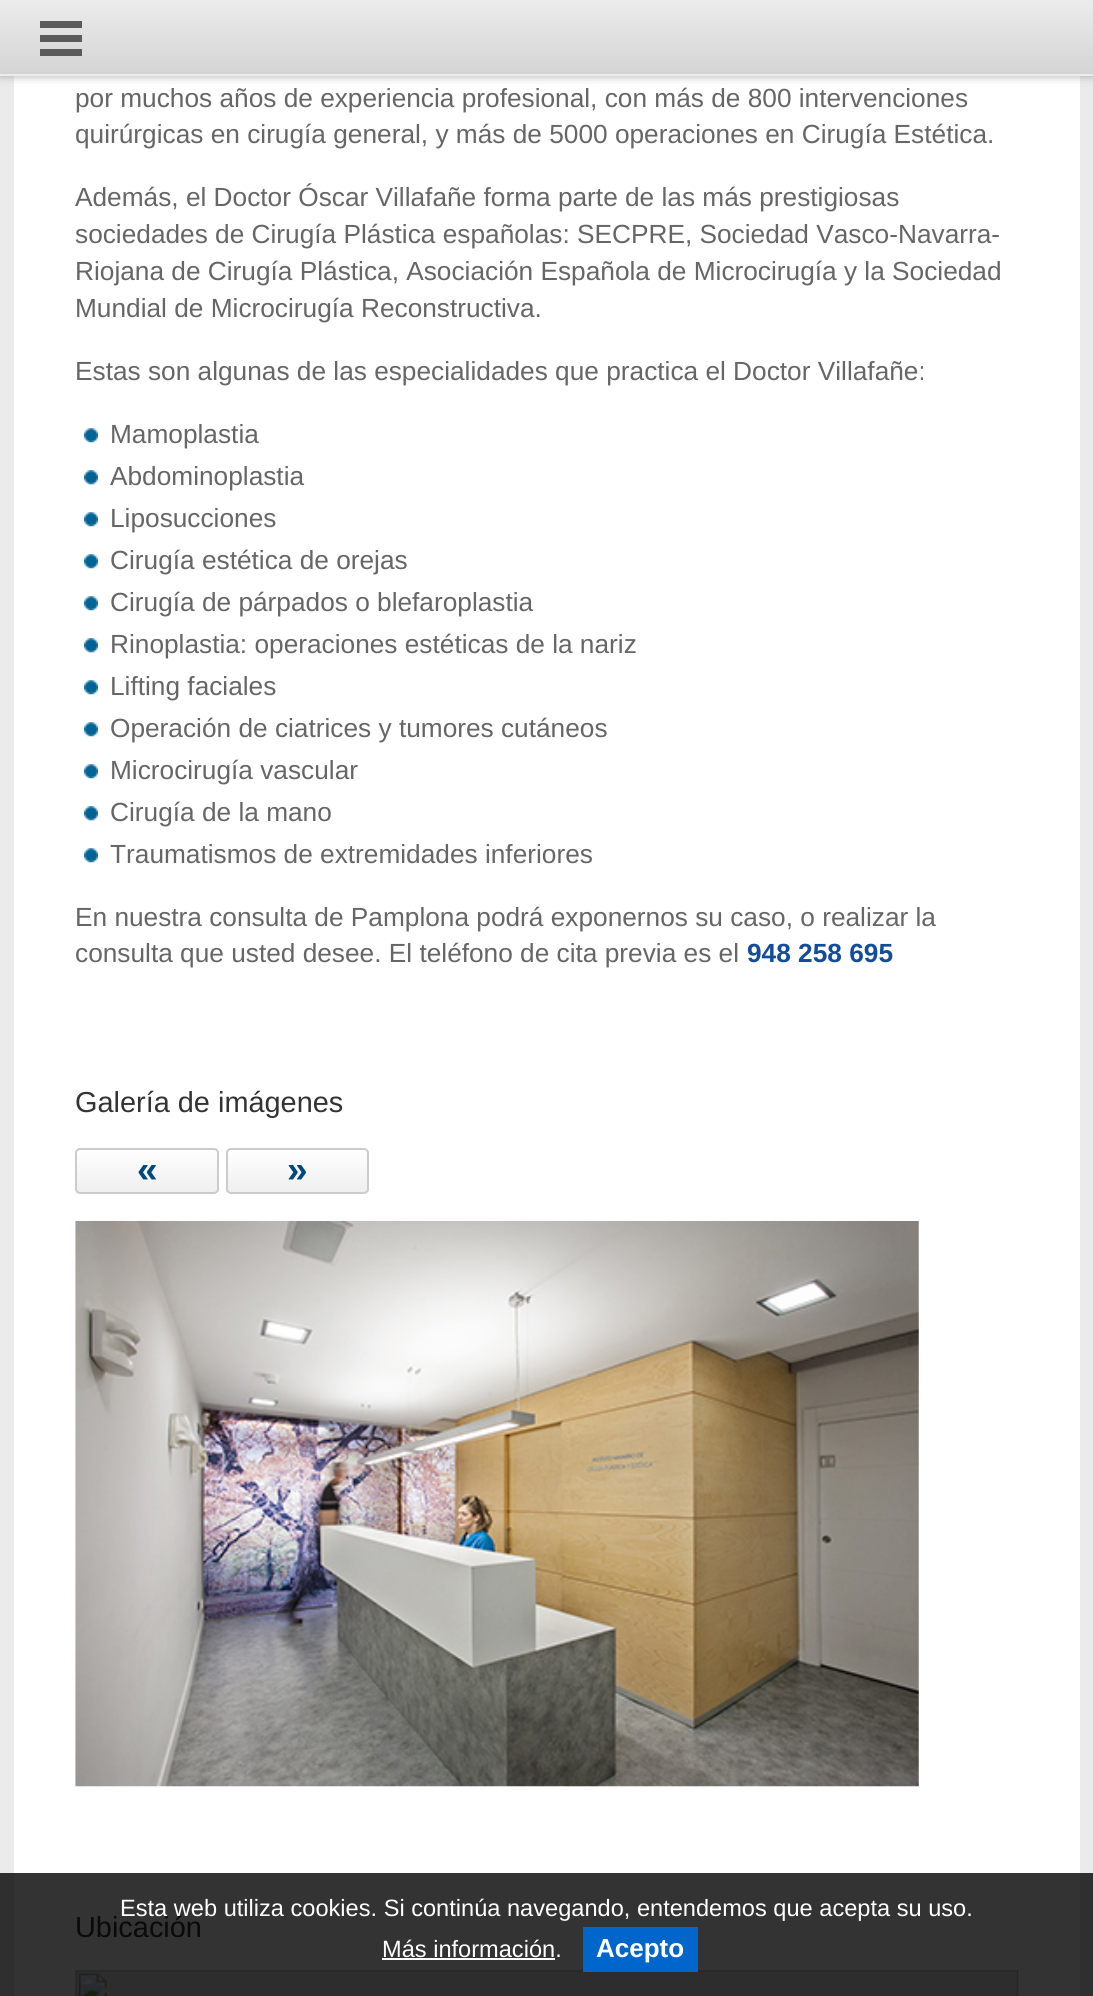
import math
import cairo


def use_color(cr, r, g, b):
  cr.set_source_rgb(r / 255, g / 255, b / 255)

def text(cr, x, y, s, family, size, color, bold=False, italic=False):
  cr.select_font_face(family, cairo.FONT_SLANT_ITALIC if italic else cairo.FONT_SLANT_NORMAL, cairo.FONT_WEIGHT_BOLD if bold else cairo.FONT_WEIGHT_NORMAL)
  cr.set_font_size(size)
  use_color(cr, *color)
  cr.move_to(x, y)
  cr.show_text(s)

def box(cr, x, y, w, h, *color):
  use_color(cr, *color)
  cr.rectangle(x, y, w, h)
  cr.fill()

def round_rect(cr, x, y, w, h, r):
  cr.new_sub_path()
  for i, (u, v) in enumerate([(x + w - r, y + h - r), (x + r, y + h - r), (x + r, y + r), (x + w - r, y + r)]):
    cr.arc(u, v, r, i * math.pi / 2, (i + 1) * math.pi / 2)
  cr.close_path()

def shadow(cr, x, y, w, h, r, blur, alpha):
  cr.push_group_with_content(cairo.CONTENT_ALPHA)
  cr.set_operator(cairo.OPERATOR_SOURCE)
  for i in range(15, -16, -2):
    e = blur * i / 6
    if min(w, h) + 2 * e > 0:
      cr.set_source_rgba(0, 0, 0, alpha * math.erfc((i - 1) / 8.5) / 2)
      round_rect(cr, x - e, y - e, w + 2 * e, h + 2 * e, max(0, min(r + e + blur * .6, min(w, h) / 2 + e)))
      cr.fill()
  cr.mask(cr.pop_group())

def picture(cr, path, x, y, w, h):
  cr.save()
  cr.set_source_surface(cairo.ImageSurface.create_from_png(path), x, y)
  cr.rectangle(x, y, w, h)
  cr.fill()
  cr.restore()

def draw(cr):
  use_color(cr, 235, 235, 235)
  cr.paint()
  box(cr, 0, 1873, 1093, 123, 47, 47, 47)
  box(cr, 14, 76, 1066, 1797, 255, 255, 255)
  use_color(cr, 153, 153, 153)
  shadow(cr, 0, 0, 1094, 75, 0, 5, 1)
  gradient = cairo.LinearGradient(0, 0, 0, 74)
  gradient.add_color_stop_rgba(0, 0.925, 0.925, 0.925, 1)
  gradient.add_color_stop_rgba(1, 0.831, 0.831, 0.831, 1)
  cr.set_source(gradient)
  cr.rectangle(0, 0, 1093, 74)
  cr.fill()
  box(cr, 0, 74, 1093, 2, 236, 236, 236)
  box(cr, 40, 21, 42, 7, 91, 91, 91)
  box(cr, 40, 35, 42, 7, 91, 91, 91)
  box(cr, 40, 49, 42, 7, 91, 91, 91)
  box(cr, 14, 1873, 1066, 123, 51, 51, 51)
  picture(cr, "img_01.png", 84, 428, 14, 15)
  picture(cr, "img_01.png", 84, 470, 14, 15)
  picture(cr, "img_01.png", 84, 512, 14, 15)
  picture(cr, "img_01.png", 84, 554, 14, 15)
  picture(cr, "img_01.png", 84, 596, 14, 15)
  picture(cr, "img_01.png", 84, 638, 14, 15)
  picture(cr, "img_01.png", 84, 680, 14, 15)
  picture(cr, "img_01.png", 84, 722, 14, 15)
  picture(cr, "img_01.png", 84, 764, 14, 15)
  picture(cr, "img_01.png", 84, 806, 14, 15)
  picture(cr, "img_01.png", 84, 848, 14, 15)
  cr.save()
  round_rect(cr, 75, 1148, 144, 46, 5)
  cr.clip()
  gradient = cairo.LinearGradient(77, 1150, 77, 1192)
  gradient.add_color_stop_rgba(0, 1, 1, 1, 1)
  gradient.add_color_stop_rgba(1, 0.937, 0.937, 0.937, 1)
  cr.set_source(gradient)
  cr.rectangle(75, 1150, 144, 42)
  cr.fill()
  cr.restore()
  round_rect(cr, 76, 1149, 142, 44, 4)
  use_color(cr, 204, 204, 204)
  cr.stroke()
  cr.save()
  round_rect(cr, 226, 1148, 143, 46, 5)
  cr.clip()
  gradient = cairo.LinearGradient(228, 1150, 228, 1192)
  gradient.add_color_stop_rgba(0, 1, 1, 1, 1)
  gradient.add_color_stop_rgba(1, 0.937, 0.937, 0.937, 1)
  cr.set_source(gradient)
  cr.rectangle(226, 1150, 143, 42)
  cr.fill()
  cr.restore()
  round_rect(cr, 227, 1149, 141, 44, 4)
  cr.stroke()
  picture(cr, "img_02.png", 75, 1221, 844, 566)
  picture(cr, "img_03.png", 75, 1970, 944, 26)
  box(cr, 382, 1958, 173, 2, 255, 255, 255)
  box(cr, 583, 1927, 115, 45, 0, 102, 204)
  text(cr, 75, 107, "por muchos años de experiencia profesional, con más de 800 intervenciones", "Liberation Sans", 26.25, (102, 102, 102))
  text(cr, 75, 143, "quirúrgicas en cirugía general, y más de 5000 operaciones en Cirugía Estética.", "Liberation Sans", 26.25, (102, 102, 102))
  text(cr, 75, 206, "Además, el Doctor Óscar Villafañe forma parte de las más prestigiosas", "Liberation Sans", 26.25, (102, 102, 102))
  text(cr, 75, 243, "sociedades de Cirugía Plástica españolas: SECPRE, Sociedad Vasco-Navarra-", "Liberation Sans", 26.25, (102, 102, 102))
  text(cr, 75, 280, "Riojana de Cirugía Plástica, Asociación Española de Microcirugía y la Sociedad", "Liberation Sans", 26.25, (102, 102, 102))
  text(cr, 75, 317, "Mundial de Microcirugía Reconstructiva.", "Liberation Sans", 26.25, (102, 102, 102))
  text(cr, 75, 380, "Estas son algunas de las especialidades que practica el Doctor Villafañe:", "Liberation Sans", 26.25, (102, 102, 102))
  text(cr, 110, 443, "Mamoplastia", "Liberation Sans", 26.25, (102, 102, 102))
  text(cr, 110, 485, "Abdominoplastia", "Liberation Sans", 26.25, (102, 102, 102))
  text(cr, 110, 527, "Liposucciones", "Liberation Sans", 26.25, (102, 102, 102))
  text(cr, 110, 569, "Cirugía estética de orejas", "Liberation Sans", 26.25, (102, 102, 102))
  text(cr, 110, 611, "Cirugía de párpados o blefaroplastia", "Liberation Sans", 26.25, (102, 102, 102))
  text(cr, 110, 653, "Rinoplastia: operaciones estéticas de la nariz", "Liberation Sans", 26.25, (102, 102, 102))
  text(cr, 110, 695, "Lifting faciales", "Liberation Sans", 26.25, (102, 102, 102))
  text(cr, 110, 737, "Operación de ciatrices y tumores cutáneos", "Liberation Sans", 26.25, (102, 102, 102))
  text(cr, 110, 779, "Microcirugía vascular", "Liberation Sans", 26.25, (102, 102, 102))
  text(cr, 110, 821, "Cirugía de la mano", "Liberation Sans", 26.25, (102, 102, 102))
  text(cr, 110, 863, "Traumatismos de extremidades inferiores", "Liberation Sans", 26.25, (102, 102, 102))
  text(cr, 75, 926, "En nuestra consulta de Pamplona podrá exponernos su caso, o realizar la", "Liberation Sans", 26.25, (102, 102, 102))
  text(cr, 75, 962, "consulta que usted desee. El teléfono de cita previa es el", "Liberation Sans", 26.25, (102, 102, 102))
  text(cr, 747, 962, "948 258 695", "Liberation Sans", 26.25, (19, 76, 153), bold=True)
  text(cr, 75, 1112, "Galería de imágenes", "Liberation Sans", 28.9, (51, 51, 51))
  text(cr, 137, 1182, "«", "Liberation Sans", 37, (0, 73, 127), bold=True)
  text(cr, 287, 1182, "»", "Liberation Sans", 37, (0, 73, 127), bold=True)
  text(cr, 75, 1937, "Ubicación", "Liberation Sans", 28.9, (10, 10, 10))
  text(cr, 120, 1916, "Esta web utiliza cookies. Si continúa navegando, entendemos que acepta su uso.", "Liberation Sans", 23.6, (255, 255, 255))
  text(cr, 382, 1957, "Más información.", "Liberation Sans", 23.6, (255, 255, 255))
  text(cr, 596, 1957, "Acepto", "Liberation Sans", 26, (255, 255, 255), bold=True)


surface = cairo.ImageSurface(cairo.FORMAT_RGB24, 1093, 1996)
cr = cairo.Context(surface)
options = cairo.FontOptions()
options.set_hint_metrics(cairo.HINT_METRICS_OFF)
options.set_hint_style(cairo.HINT_STYLE_NONE)
cr.set_font_options(options)
cr.set_miter_limit(4)
draw(cr)
surface.write_to_png("out.png")
